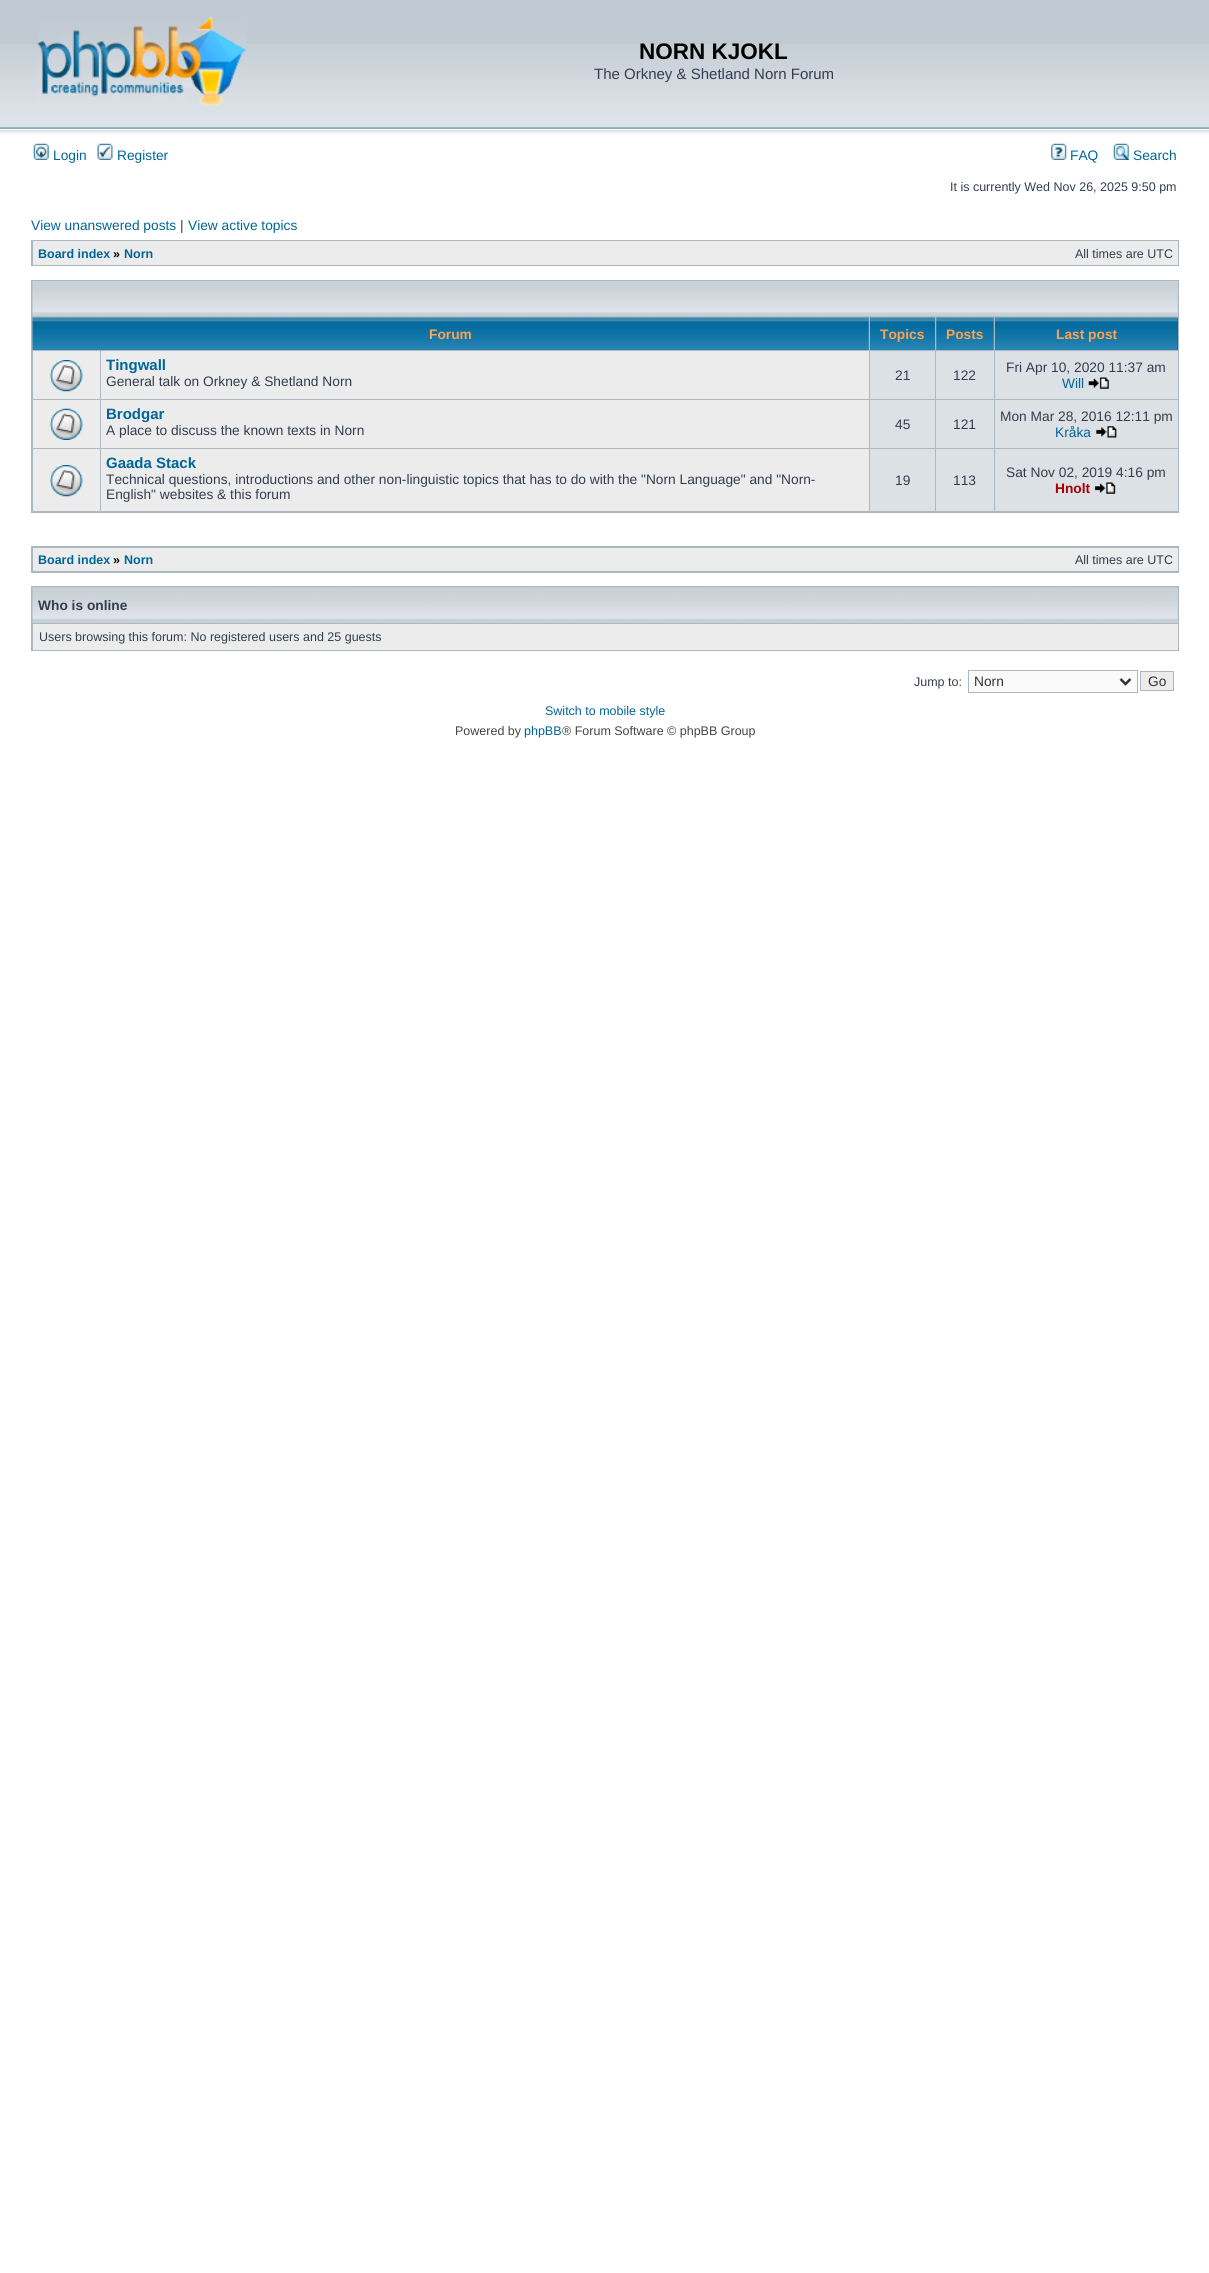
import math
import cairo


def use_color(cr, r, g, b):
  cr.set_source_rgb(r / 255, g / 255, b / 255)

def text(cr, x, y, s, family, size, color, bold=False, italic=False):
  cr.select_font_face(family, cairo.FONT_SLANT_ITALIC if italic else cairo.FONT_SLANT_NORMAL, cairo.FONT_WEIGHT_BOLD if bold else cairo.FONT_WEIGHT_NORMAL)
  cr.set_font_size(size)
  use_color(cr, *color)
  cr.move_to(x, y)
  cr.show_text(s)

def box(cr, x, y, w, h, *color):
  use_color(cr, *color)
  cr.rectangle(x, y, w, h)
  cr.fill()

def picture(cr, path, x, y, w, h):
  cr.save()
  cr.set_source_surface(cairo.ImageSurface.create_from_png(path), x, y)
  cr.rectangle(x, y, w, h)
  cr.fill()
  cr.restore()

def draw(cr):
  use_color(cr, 255, 255, 255)
  cr.paint()
  box(cr, 0, 0, 1209, 44, 193, 202, 210)
  picture(cr, "img_01.png", 0, 44, 1209, 97)
  picture(cr, "img_02.png", 37, 17, 210, 89)
  picture(cr, "img_03.png", 33, 143, 16, 17)
  picture(cr, "img_04.png", 97, 143, 16, 17)
  picture(cr, "img_05.png", 1051, 143, 16, 17)
  picture(cr, "img_06.png", 1113, 143, 16, 17)
  box(cr, 31, 240, 1148, 26, 169, 184, 194)
  box(cr, 33, 241, 1145, 24, 236, 236, 236)
  box(cr, 31, 280, 1148, 233, 169, 184, 194)
  box(cr, 33, 281, 1145, 35, 199, 208, 215)
  picture(cr, "img_07.png", 32, 281, 1146, 36)
  picture(cr, "img_08.png", 32, 317, 837, 33)
  picture(cr, "img_09.png", 870, 317, 65, 33)
  picture(cr, "img_10.png", 936, 317, 58, 33)
  box(cr, 1177, 318, 1, 32, 0, 102, 153)
  picture(cr, "img_11.png", 995, 317, 183, 33)
  box(cr, 33, 351, 67, 48, 236, 236, 236)
  picture(cr, "img_12.png", 49, 360, 34, 32)
  box(cr, 101, 351, 768, 48, 236, 236, 236)
  box(cr, 870, 351, 65, 48, 220, 225, 229)
  box(cr, 936, 351, 58, 48, 220, 225, 229)
  box(cr, 995, 351, 183, 48, 220, 225, 229)
  picture(cr, "img_13.png", 1088, 377, 21, 12)
  box(cr, 33, 400, 67, 48, 236, 236, 236)
  picture(cr, "img_14.png", 49, 408, 34, 32)
  box(cr, 101, 400, 768, 48, 236, 236, 236)
  box(cr, 870, 400, 65, 48, 220, 225, 229)
  box(cr, 936, 400, 58, 48, 220, 225, 229)
  box(cr, 995, 400, 183, 48, 220, 225, 229)
  picture(cr, "img_15.png", 1096, 426, 21, 12)
  box(cr, 33, 449, 67, 62, 236, 236, 236)
  picture(cr, "img_12.png", 49, 465, 34, 32)
  box(cr, 101, 449, 768, 62, 236, 236, 236)
  box(cr, 870, 449, 65, 62, 220, 225, 229)
  box(cr, 936, 449, 58, 62, 220, 225, 229)
  box(cr, 995, 449, 183, 62, 220, 225, 229)
  picture(cr, "img_16.png", 1094, 482, 22, 12)
  box(cr, 31, 546, 1148, 27, 169, 184, 194)
  box(cr, 33, 548, 1145, 23, 236, 236, 236)
  box(cr, 31, 586, 1148, 65, 169, 184, 194)
  box(cr, 33, 588, 1145, 35, 199, 208, 215)
  picture(cr, "img_17.png", 32, 587, 1146, 36)
  box(cr, 33, 624, 1145, 26, 236, 236, 236)
  use_color(cr, 250, 250, 250)
  cr.rectangle(968.5, 670.5, 169, 22)
  cr.fill_preserve()
  use_color(cr, 169, 184, 194)
  cr.set_line_width(1)
  cr.stroke()
  cr.new_path()
  cr.move_to(1120.5, 679)
  cr.line_to(1125.5, 684)
  cr.line_to(1130.5, 679)
  use_color(cr, 51, 51, 51)
  cr.set_line_width(2.5)
  cr.stroke()
  use_color(cr, 236, 236, 236)
  cr.rectangle(1140.5, 671.5, 33, 19)
  cr.fill_preserve()
  use_color(cr, 169, 184, 194)
  cr.set_line_width(1)
  cr.stroke()
  text(cr, 639, 59, "NORN KJOKL", "Liberation Sans", 22.5, (0, 0, 0), bold=True)
  text(cr, 594, 79, "The Orkney & Shetland Norn Forum", "Liberation Sans", 15, (50, 61, 79))
  text(cr, 53, 160, "Login", "Liberation Sans", 13.75, (0, 101, 151))
  text(cr, 117, 160, "Register", "Liberation Sans", 13.75, (0, 101, 151))
  text(cr, 1070, 160, "FAQ", "Liberation Sans", 13.75, (0, 101, 151))
  text(cr, 1133, 160, "Search", "Liberation Sans", 13.75, (0, 101, 151))
  text(cr, 950, 191, "It is currently Wed Nov 26, 2025 9:50 pm", "Liberation Sans", 12.5, (50, 61, 79))
  text(cr, 31, 230, "View unanswered posts", "Liberation Sans", 13.75, (0, 101, 151))
  text(cr, 180, 230, "|", "Liberation Sans", 13.75, (50, 61, 79))
  text(cr, 188, 230, "View active topics", "Liberation Sans", 13.75, (0, 101, 151))
  text(cr, 38, 258, "Board index", "Liberation Sans", 12.5, (0, 101, 151), bold=True)
  text(cr, 113, 258, "»", "Liberation Sans", 12.5, (0, 0, 0), bold=True)
  text(cr, 124, 258, "Norn", "Liberation Sans", 12.5, (0, 101, 151), bold=True)
  text(cr, 1075, 258, "All times are UTC", "Liberation Sans", 12.5, (50, 61, 79))
  text(cr, 429, 339, "Forum", "Liberation Sans", 13.75, (255, 163, 79), bold=True)
  text(cr, 880, 339, "Topics", "Liberation Sans", 13.75, (255, 163, 79), bold=True)
  text(cr, 946, 339, "Posts", "Liberation Sans", 13.75, (255, 163, 79), bold=True)
  text(cr, 1056, 339, "Last post", "Liberation Sans", 13.75, (255, 163, 79), bold=True)
  text(cr, 106, 370, "Tingwall", "Liberation Sans", 15, (0, 101, 151), bold=True)
  text(cr, 106, 386, "General talk on Orkney & Shetland Norn", "Liberation Sans", 13.75, (50, 61, 79))
  text(cr, 895, 380, "21", "Liberation Sans", 13.75, (50, 61, 79))
  text(cr, 953, 380, "122", "Liberation Sans", 13.75, (50, 61, 79))
  text(cr, 1006, 372, "Fri Apr 10, 2020 11:37 am", "Liberation Sans", 13.75, (50, 61, 79))
  text(cr, 1062, 388, "Will", "Liberation Sans", 13.75, (0, 101, 151))
  text(cr, 106, 419, "Brodgar", "Liberation Sans", 15, (0, 101, 151), bold=True)
  text(cr, 106, 435, "A place to discuss the known texts in Norn", "Liberation Sans", 13.75, (50, 61, 79))
  text(cr, 895, 429, "45", "Liberation Sans", 13.75, (50, 61, 79))
  text(cr, 953, 429, "121", "Liberation Sans", 13.75, (50, 61, 79))
  text(cr, 1000, 421, "Mon Mar 28, 2016 12:11 pm", "Liberation Sans", 13.75, (50, 61, 79))
  text(cr, 1055, 437, "Kråka", "Liberation Sans", 13.75, (0, 101, 151))
  text(cr, 106, 468, "Gaada Stack", "Liberation Sans", 15, (0, 101, 151), bold=True)
  text(cr, 106, 484, "Technical questions, introductions and other non-linguistic topics that has to do with the \"Norn Language\" and \"Norn-", "Liberation Sans", 13.75, (50, 61, 79))
  text(cr, 106, 499, "English\" websites & this forum", "Liberation Sans", 13.75, (50, 61, 79))
  text(cr, 895, 485, "19", "Liberation Sans", 13.75, (50, 61, 79))
  text(cr, 953, 485, "113", "Liberation Sans", 13.75, (50, 61, 79))
  text(cr, 1006, 477, "Sat Nov 02, 2019 4:16 pm", "Liberation Sans", 13.75, (50, 61, 79))
  text(cr, 1055, 493, "Hnolt", "Liberation Sans", 13.75, (170, 0, 0), bold=True)
  text(cr, 38, 564, "Board index", "Liberation Sans", 12.5, (0, 101, 151), bold=True)
  text(cr, 113, 564, "»", "Liberation Sans", 12.5, (0, 0, 0), bold=True)
  text(cr, 124, 564, "Norn", "Liberation Sans", 12.5, (0, 101, 151), bold=True)
  text(cr, 1075, 564, "All times are UTC", "Liberation Sans", 12.5, (50, 61, 79))
  text(cr, 38, 610, "Who is online", "Liberation Sans", 13.75, (50, 61, 79), bold=True)
  text(cr, 39, 641, "Users browsing this forum: No registered users and 25 guests", "Liberation Sans", 12.5, (50, 61, 79))
  text(cr, 914, 686, "Jump to:", "Liberation Sans", 12.5, (50, 61, 79))
  text(cr, 974, 686, "Norn", "Liberation Sans", 13.75, (51, 51, 51))
  text(cr, 1148, 686, "Go", "Liberation Sans", 13.75, (51, 51, 51))
  text(cr, 545, 715, "Switch to mobile style", "Liberation Sans", 12.5, (0, 101, 151))
  text(cr, 455, 735, "Powered by", "Liberation Sans", 12.5, (68, 68, 68))
  text(cr, 524, 735, "phpBB", "Liberation Sans", 12.5, (0, 101, 151))
  text(cr, 562, 735, "® Forum Software © phpBB Group", "Liberation Sans", 12.5, (68, 68, 68))


surface = cairo.ImageSurface(cairo.FORMAT_RGB24, 1209, 2273)
cr = cairo.Context(surface)
options = cairo.FontOptions()
options.set_hint_metrics(cairo.HINT_METRICS_OFF)
options.set_hint_style(cairo.HINT_STYLE_NONE)
cr.set_font_options(options)
cr.set_miter_limit(4)
draw(cr)
surface.write_to_png("out.png")
